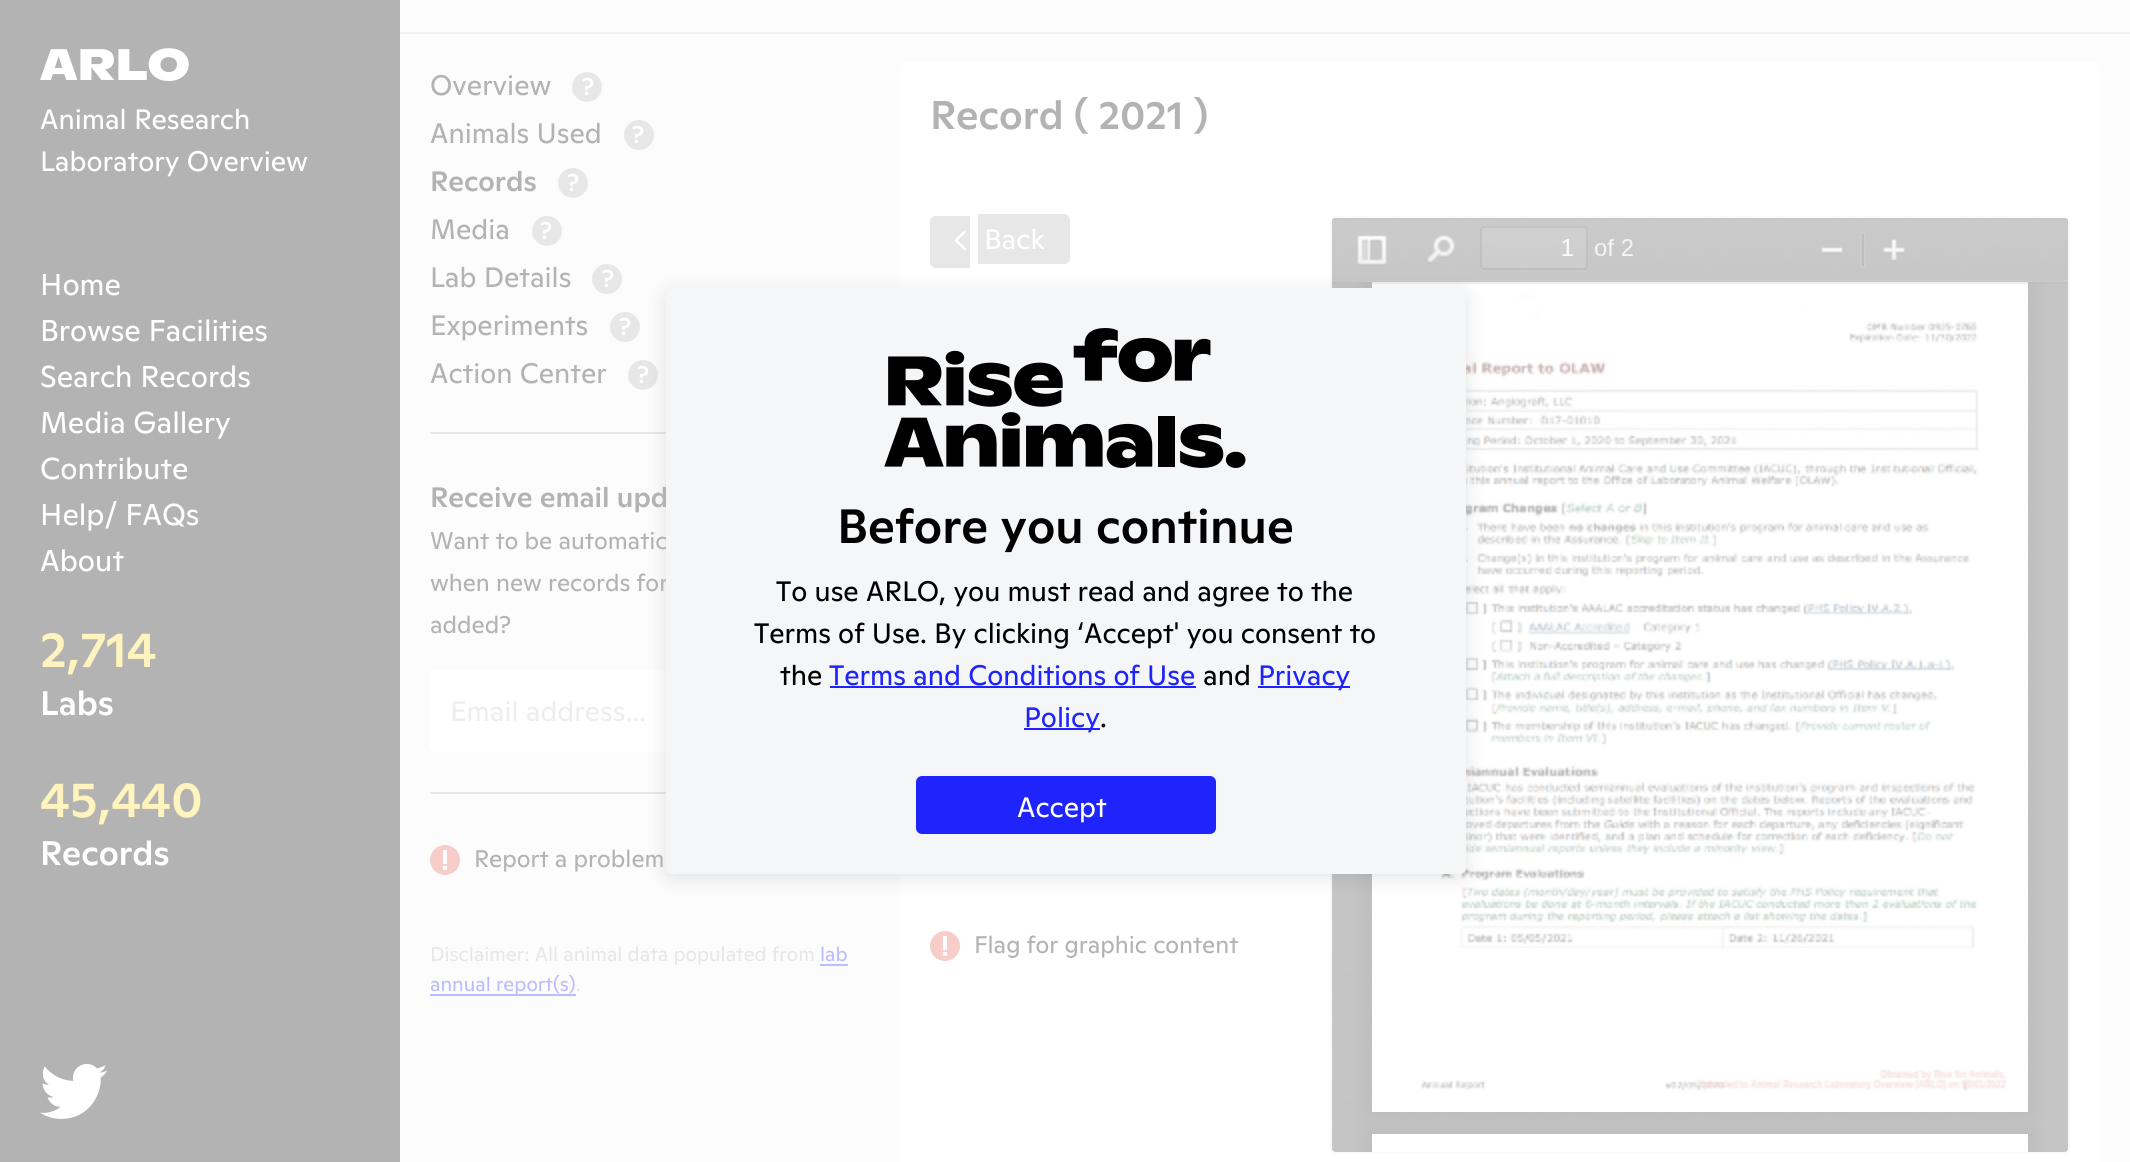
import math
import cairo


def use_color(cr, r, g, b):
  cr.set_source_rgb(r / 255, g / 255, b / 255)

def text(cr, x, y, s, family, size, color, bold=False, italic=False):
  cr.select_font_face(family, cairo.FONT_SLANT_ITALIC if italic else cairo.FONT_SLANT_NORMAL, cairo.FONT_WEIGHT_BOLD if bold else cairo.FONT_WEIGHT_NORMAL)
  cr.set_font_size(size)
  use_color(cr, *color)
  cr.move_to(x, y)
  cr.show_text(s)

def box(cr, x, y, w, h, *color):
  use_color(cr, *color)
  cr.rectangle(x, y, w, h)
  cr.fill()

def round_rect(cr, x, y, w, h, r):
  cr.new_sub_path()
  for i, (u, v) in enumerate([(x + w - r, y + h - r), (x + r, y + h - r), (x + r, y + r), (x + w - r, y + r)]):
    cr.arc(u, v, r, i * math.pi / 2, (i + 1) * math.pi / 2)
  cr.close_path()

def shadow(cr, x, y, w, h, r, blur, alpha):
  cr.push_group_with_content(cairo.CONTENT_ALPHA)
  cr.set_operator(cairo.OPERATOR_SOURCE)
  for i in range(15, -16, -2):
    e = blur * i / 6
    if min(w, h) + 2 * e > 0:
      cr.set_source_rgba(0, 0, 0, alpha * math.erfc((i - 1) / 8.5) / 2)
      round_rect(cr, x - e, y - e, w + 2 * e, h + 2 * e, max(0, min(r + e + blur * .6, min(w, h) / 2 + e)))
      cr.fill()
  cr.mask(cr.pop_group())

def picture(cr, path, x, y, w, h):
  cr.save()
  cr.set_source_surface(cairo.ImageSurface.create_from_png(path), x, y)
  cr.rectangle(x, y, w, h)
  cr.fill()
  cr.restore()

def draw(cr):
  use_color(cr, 252, 252, 253)
  cr.paint()
  box(cr, 0, 0, 400, 1162, 179, 179, 179)
  picture(cr, "img_01.png", 40, 1064, 68, 55)
  box(cr, 400, 32, 1730, 2, 242, 242, 242)
  use_color(cr, 231, 231, 231)
  cr.arc(587, 87, 15, 0, 2 * math.pi)
  cr.fill()
  cr.arc(639, 135, 15, 0, 2 * math.pi)
  cr.fill()
  cr.arc(573, 183, 15, 0, 2 * math.pi)
  cr.fill()
  cr.arc(547, 231, 15, 0, 2 * math.pi)
  cr.fill()
  cr.arc(607, 279, 15, 0, 2 * math.pi)
  cr.fill()
  cr.arc(625, 327, 15, 0, 2 * math.pi)
  cr.fill()
  cr.arc(643, 375, 15, 0, 2 * math.pi)
  cr.fill()
  box(cr, 430, 432, 236, 2, 231, 231, 231)
  use_color(cr, 255, 255, 255)
  round_rect(cr, 430, 670, 420, 82, 6)
  cr.fill()
  box(cr, 430, 792, 236, 2, 231, 231, 231)
  picture(cr, "img_02.png", 430, 845, 30, 30)
  box(cr, 820, 964, 28, 2, 188, 189, 254)
  box(cr, 430, 994, 146, 2, 188, 189, 254)
  use_color(cr, 255, 255, 255)
  round_rect(cr, 900, 62, 1200, 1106, 6)
  cr.fill()
  use_color(cr, 231, 231, 231)
  cr.new_path()
  cr.move_to(936, 216)
  cr.line_to(970, 216)
  cr.line_to(970, 268)
  cr.line_to(936, 268)
  cr.curve_to(932.5, 268, 930, 265.5, 930, 262)
  cr.line_to(930, 222)
  cr.curve_to(930, 218.5, 932.5, 216, 936, 216)
  cr.close_path()
  cr.fill()
  picture(cr, "img_03.png", 954, 230, 12, 21)
  cr.new_path()
  cr.move_to(978, 214)
  cr.line_to(1064, 214)
  cr.curve_to(1067.5, 214, 1070, 216.5, 1070, 220)
  cr.line_to(1070, 258)
  cr.curve_to(1070, 261.5, 1067.5, 264, 1064, 264)
  cr.line_to(978, 264)
  cr.close_path()
  cr.fill()
  picture(cr, "img_04.png", 930, 931, 30, 30)
  round_rect(cr, 1331, 217, 738, 936, 5)
  use_color(cr, 250, 250, 250)
  cr.stroke()
  picture(cr, "img_05.png", 1332, 218, 736, 934)
  use_color(cr, 0, 0, 0)
  shadow(cr, 666, 292, 800, 586, 6, 10, 0.11)
  text(cr, 40, 80, "ARLO", "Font", 44, (255, 255, 255), bold=True)
  text(cr, 40, 129, "Animal Research", "Font", 28, (255, 255, 255))
  text(cr, 40, 171, "Laboratory Overview", "Font", 28, (255, 255, 255))
  text(cr, 40, 295, "Home", "Font", 30, (255, 255, 255))
  text(cr, 40, 341, "Browse Facilities", "Font", 30, (255, 255, 255))
  text(cr, 40, 387, "Search Records", "Font", 30, (255, 255, 255))
  text(cr, 40, 433, "Media Gallery", "Font", 30, (255, 255, 255))
  text(cr, 40, 479, "Contribute", "Font", 30, (255, 255, 255))
  text(cr, 40, 525, "Help/ FAQs", "Font", 30, (255, 255, 255))
  text(cr, 40, 571, "About", "Font", 30, (255, 255, 255))
  text(cr, 40, 667, "2,714", "Font Medium", 50, (255, 244, 190))
  text(cr, 40, 715, "Labs", "Font Medium", 34, (255, 255, 255))
  text(cr, 40, 817, "45,440", "Font Medium", 50, (255, 244, 190))
  text(cr, 40, 865, "Records", "Font Medium", 34, (255, 255, 255))
  text(cr, 430, 95, "Overview", "Font", 28, (179, 179, 179))
  text(cr, 582, 95, "?", "Font Medium", 24, (255, 255, 255))
  text(cr, 430, 143, "Animals Used", "Font", 28, (179, 179, 179))
  text(cr, 632, 143, "?", "Font Medium", 24, (255, 255, 255))
  text(cr, 430, 191, "Records", "Font Medium", 28, (179, 179, 179))
  text(cr, 567, 191, "?", "Font Medium", 24, (255, 255, 255))
  text(cr, 430, 239, "Media", "Font", 28, (179, 179, 179))
  text(cr, 540, 239, "?", "Font Medium", 24, (255, 255, 255))
  text(cr, 430, 287, "Lab Details", "Font", 28, (179, 179, 179))
  text(cr, 602, 287, "?", "Font Medium", 24, (255, 255, 255))
  text(cr, 430, 335, "Experiments", "Font", 28, (179, 179, 179))
  text(cr, 619, 335, "?", "Font Medium", 24, (255, 255, 255))
  text(cr, 430, 383, "Action Center", "Font", 28, (179, 179, 179))
  text(cr, 637, 383, "?", "Font Medium", 24, (255, 255, 255))
  text(cr, 430, 507, "Receive email upd", "Font Medium", 28, (179, 179, 179))
  text(cr, 430, 549, "Want to be automatic", "Font", 24, (179, 179, 179))
  text(cr, 430, 591, "when new records for", "Font", 24, (179, 179, 179))
  text(cr, 430, 633, "added?", "Font", 24, (179, 179, 179))
  text(cr, 450, 721, "Email address...", "Font", 28, (238, 238, 238))
  text(cr, 474, 867, "Report a problem", "Font", 24, (179, 179, 179))
  text(cr, 430, 961, "Disclaimer: All animal data populated from", "Font", 20, (231, 231, 231))
  text(cr, 820, 961, "lab", "Font", 20, (188, 189, 254))
  text(cr, 430, 991, "annual report(s)", "Font", 20, (188, 189, 254))
  text(cr, 576, 991, ".", "Font", 20, (231, 231, 231))
  text(cr, 930, 129, "Record ( 2021 )", "Font Medium", 40, (179, 179, 179))
  text(cr, 984, 249, "Back", "Font", 28, (255, 255, 255))
  text(cr, 974, 953, "Flag for graphic content", "Font", 24, (179, 179, 179))
  use_color(cr, 245, 246, 248)
  round_rect(cr, 666, 288, 800, 586, 6)
  cr.fill()
  picture(cr, "img_06.png", 884, 328, 362, 140)
  text(cr, 837, 543, "Before you continue", "Font Medium", 48, (0, 0, 0))
  text(cr, 776, 601, "To use ARLO, you must read and agree to the", "Font", 28, (0, 0, 0))
  text(cr, 754, 643, "Terms of Use. By clicking ‘Accept' you consent to", "Font", 28, (0, 0, 0))
  text(cr, 780, 685, "the", "Font", 28, (0, 0, 0))
  text(cr, 829, 685, "Terms and Conditions of Use", "Font", 28, (30, 36, 251))
  box(cr, 830, 686, 366, 2, 30, 36, 251)
  text(cr, 1203, 685, "and", "Font", 28, (0, 0, 0))
  box(cr, 1258, 686, 92, 2, 30, 36, 251)
  text(cr, 1258, 685, "Privacy", "Font", 28, (30, 36, 251))
  box(cr, 1024, 728, 76, 2, 30, 36, 251)
  text(cr, 1024, 727, "Policy", "Font", 28, (30, 36, 251))
  text(cr, 1100, 727, ".", "Font", 28, (0, 0, 0))
  use_color(cr, 30, 36, 251)
  round_rect(cr, 916, 776, 300, 58, 6)
  cr.fill()
  text(cr, 1017, 817, "Accept", "Font", 28, (255, 255, 255))


surface = cairo.ImageSurface(cairo.FORMAT_RGB24, 2130, 1162)
cr = cairo.Context(surface)
options = cairo.FontOptions()
options.set_hint_metrics(cairo.HINT_METRICS_OFF)
options.set_hint_style(cairo.HINT_STYLE_NONE)
cr.set_font_options(options)
cr.set_miter_limit(4)
draw(cr)
surface.write_to_png("out.png")
